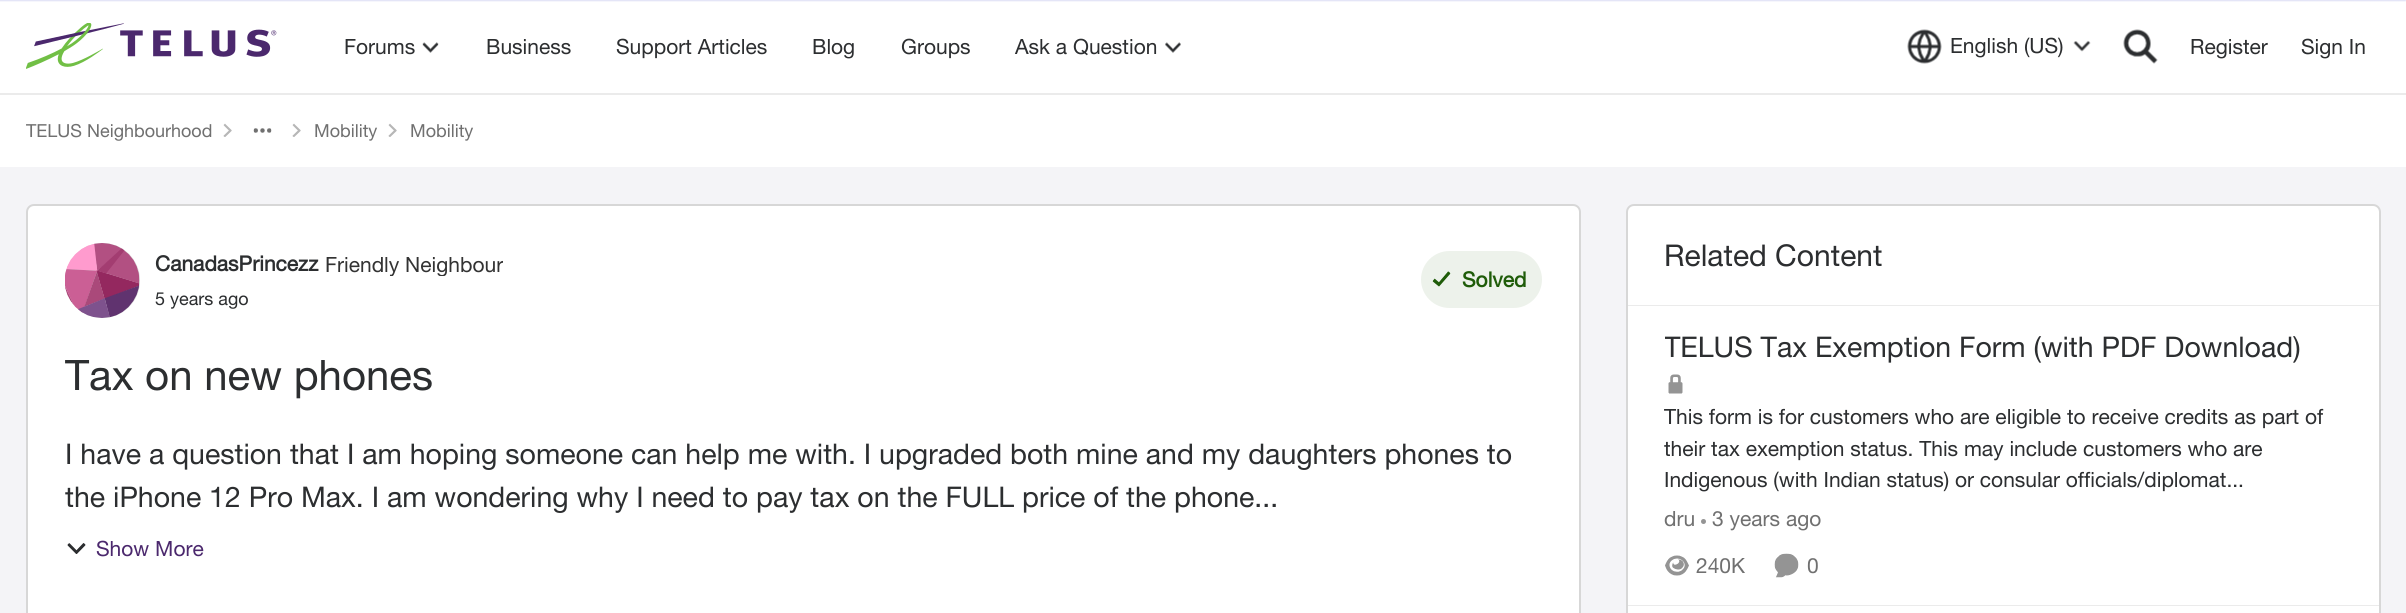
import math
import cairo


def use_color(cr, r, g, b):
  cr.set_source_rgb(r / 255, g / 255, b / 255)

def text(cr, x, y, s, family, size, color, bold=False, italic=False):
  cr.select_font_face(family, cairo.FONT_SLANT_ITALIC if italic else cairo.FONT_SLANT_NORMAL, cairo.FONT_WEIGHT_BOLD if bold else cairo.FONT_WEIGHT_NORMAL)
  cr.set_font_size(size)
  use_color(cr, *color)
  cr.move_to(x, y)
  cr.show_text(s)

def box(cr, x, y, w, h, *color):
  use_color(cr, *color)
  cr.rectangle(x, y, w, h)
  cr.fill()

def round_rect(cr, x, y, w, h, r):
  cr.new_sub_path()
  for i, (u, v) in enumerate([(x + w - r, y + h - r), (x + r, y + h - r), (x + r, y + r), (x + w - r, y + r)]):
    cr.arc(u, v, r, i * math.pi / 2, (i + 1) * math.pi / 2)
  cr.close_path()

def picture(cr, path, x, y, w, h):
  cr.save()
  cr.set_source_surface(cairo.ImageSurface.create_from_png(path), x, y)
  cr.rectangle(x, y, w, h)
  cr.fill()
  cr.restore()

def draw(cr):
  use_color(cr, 244, 244, 247)
  cr.paint()
  box(cr, 0, 0, 2406, 167, 255, 255, 255)
  box(cr, 0, 93, 2406, 2, 235, 235, 235)
  picture(cr, "img_01.png", 0, 0, 2406, 2)
  picture(cr, "img_02.png", 26, 23, 251, 46)
  picture(cr, "img_03.png", 422, 42, 17, 11)
  picture(cr, "img_04.png", 1165, 42, 16, 11)
  picture(cr, "img_05.png", 1907, 29, 35, 35)
  picture(cr, "img_06.png", 2073, 40, 18, 12)
  picture(cr, "img_07.png", 2123, 29, 35, 35)
  picture(cr, "img_08.png", 223, 123, 9, 14)
  picture(cr, "img_09.png", 253, 128, 19, 5)
  picture(cr, "img_08.png", 292, 123, 9, 14)
  picture(cr, "img_08.png", 388, 123, 9, 14)
  use_color(cr, 255, 255, 255)
  round_rect(cr, 26, 204, 1555, 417, 8)
  cr.fill()
  round_rect(cr, 27, 205, 1553, 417, 7)
  cr.set_source_rgba(0, 0, 0, 0.16)
  cr.stroke()
  use_color(cr, 217, 217, 217)
  cr.arc(102.5, 280.5, 37.5, 0, 2 * math.pi)
  cr.fill()
  picture(cr, "img_10.png", 65, 243, 75, 75)
  use_color(cr, 237, 242, 235)
  round_rect(cr, 1421, 251, 121, 57, 28.5)
  cr.fill()
  picture(cr, "img_11.png", 1432, 271, 19, 16)
  picture(cr, "img_12.png", 67, 543, 19, 11)
  use_color(cr, 255, 255, 255)
  round_rect(cr, 1626, 204, 755, 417, 8)
  cr.fill()
  round_rect(cr, 1627, 205, 753, 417, 7)
  cr.set_source_rgba(0, 0, 0, 0.16)
  cr.stroke()
  box(cr, 1628, 305, 751, 1, 235, 235, 235)
  box(cr, 1628, 605, 751, 1, 235, 235, 235)
  picture(cr, "img_13.png", 1668, 374, 15, 20)
  use_color(cr, 148, 148, 148)
  cr.arc(1703.5, 521.5, 2.5, 0, 2 * math.pi)
  cr.fill()
  picture(cr, "img_14.png", 1665, 555, 24, 21)
  picture(cr, "img_15.png", 1774, 553, 25, 25)
  text(cr, 344, 54, "Forums", "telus", 21, (44, 46, 48))
  text(cr, 486, 54, "Business", "telus", 21, (44, 46, 48))
  text(cr, 616, 54, "Support Articles", "telus", 21, (44, 46, 48))
  text(cr, 812, 54, "Blog", "telus", 21, (44, 46, 48))
  text(cr, 901, 54, "Groups", "telus", 21, (44, 46, 48))
  text(cr, 1015, 54, "Ask a Question", "telus", 21, (44, 46, 48))
  text(cr, 1950, 53, "English (US)", "telus", 21, (44, 46, 48))
  text(cr, 2190, 54, "Register", "telus", 21, (44, 46, 48))
  text(cr, 2301, 54, "Sign In", "telus", 21, (44, 46, 48))
  text(cr, 26, 137, "TELUS Neighbourhood", "telus", 18, (112, 112, 112))
  text(cr, 314, 137, "Mobility", "telus", 18, (112, 112, 112))
  text(cr, 410, 137, "Mobility", "telus", 18, (112, 112, 112))
  text(cr, 155, 271, "CanadasPrincezz", "telus", 21, (44, 46, 48), bold=True)
  cr.save()
  cr.rectangle(326, 252, 178, 24)
  cr.clip()
  text(cr, 325, 272, "Friendly Neighbour", "telus", 21, (51, 51, 51))
  cr.restore()
  text(cr, 155, 305, "5 years ago", "telus", 18, (44, 46, 48))
  text(cr, 1462, 287, "Solved", "telus", 21, (31, 92, 9), bold=True)
  text(cr, 65, 390, "Tax on new phones", "telus", 42, (44, 46, 48))
  text(cr, 65, 464, "I have a question that I am hoping someone can help me with. I upgraded both mine and my daughters phones to", "telus", 28.5, (44, 46, 48))
  cr.save()
  cr.rectangle(65, 432, 1477, 86)
  cr.clip()
  text(cr, 65, 507, "the iPhone 12 Pro Max. I am wondering why I need to pay tax on the FULL price of the phone...", "telus", 28.5, (44, 46, 48))
  cr.restore()
  text(cr, 96, 556, "Show More", "telus", 21, (75, 40, 109))
  text(cr, 1664, 266, "Related Content", "telus", 30, (44, 46, 48))
  cr.save()
  cr.rectangle(1665, 329, 636, 37)
  cr.clip()
  text(cr, 1664, 357, "TELUS Tax Exemption Form (with PDF Download)", "telus", 28.5, (44, 46, 48))
  cr.restore()
  text(cr, 1664, 424, "This form is for customers who are eligible to receive credits as part of", "telus", 21, (44, 46, 48))
  text(cr, 1664, 456, "their tax exemption status. This may include customers who are", "telus", 21, (44, 46, 48))
  text(cr, 1664, 487, "Indigenous (with Indian status) or consular officials/diplomat...", "telus", 21, (44, 46, 48))
  text(cr, 1664, 526, "dru", "telus", 21, (112, 112, 112))
  text(cr, 1712, 526, "3 years ago", "telus", 21, (112, 112, 112))
  text(cr, 1696, 573, "240K", "telus", 21, (112, 112, 112))
  text(cr, 1807, 573, "0", "telus", 21, (112, 112, 112))


surface = cairo.ImageSurface(cairo.FORMAT_RGB24, 2406, 613)
cr = cairo.Context(surface)
options = cairo.FontOptions()
options.set_hint_metrics(cairo.HINT_METRICS_OFF)
options.set_hint_style(cairo.HINT_STYLE_NONE)
cr.set_font_options(options)
cr.set_miter_limit(4)
draw(cr)
surface.write_to_png("out.png")
